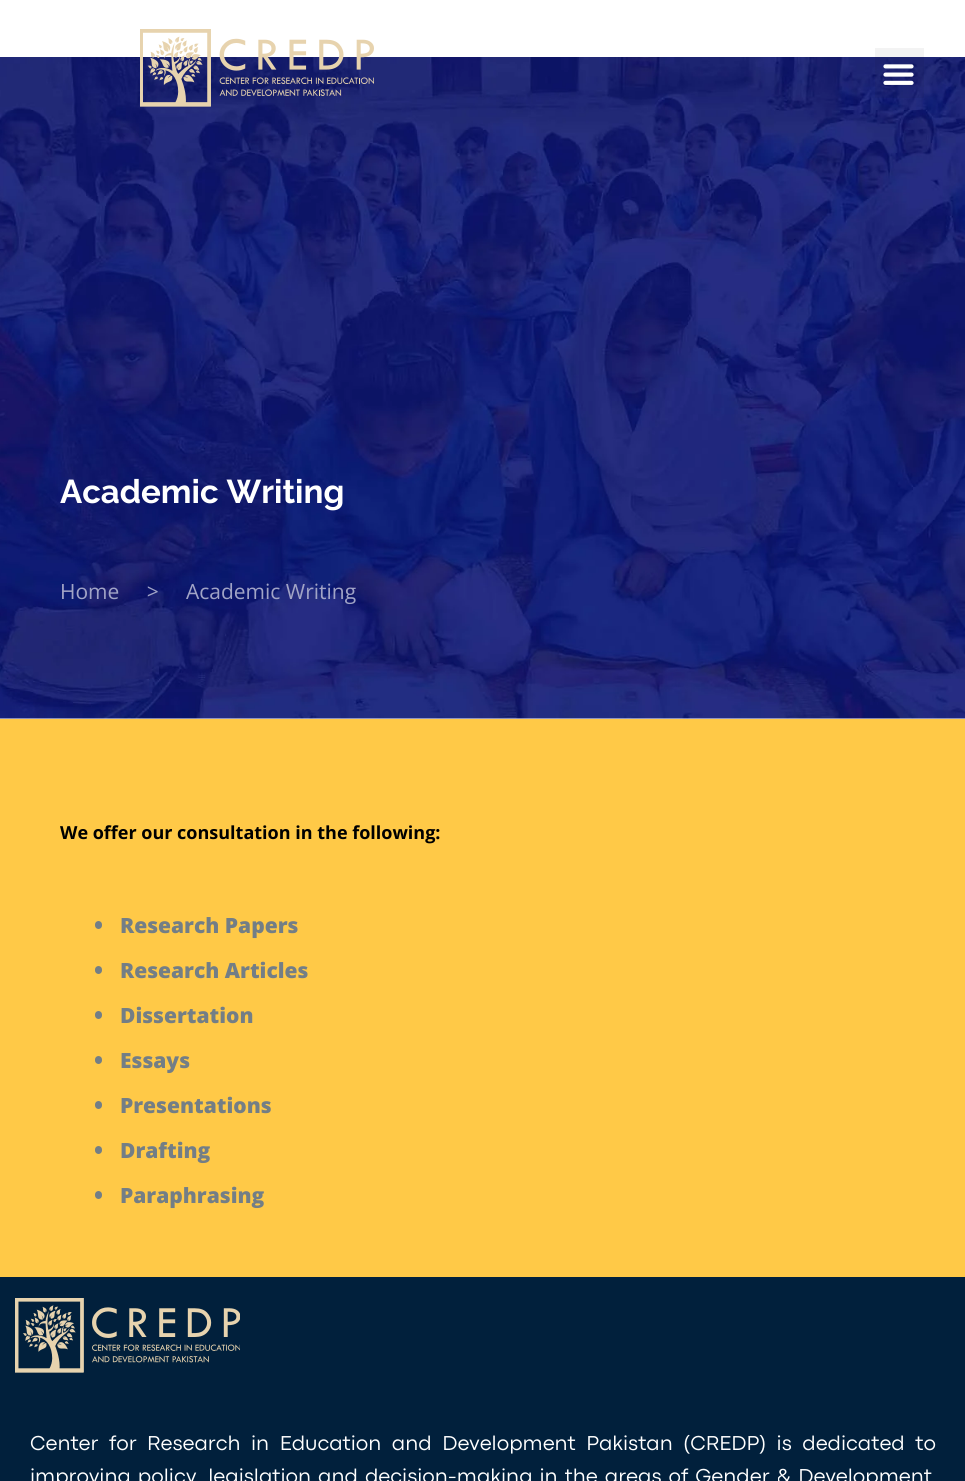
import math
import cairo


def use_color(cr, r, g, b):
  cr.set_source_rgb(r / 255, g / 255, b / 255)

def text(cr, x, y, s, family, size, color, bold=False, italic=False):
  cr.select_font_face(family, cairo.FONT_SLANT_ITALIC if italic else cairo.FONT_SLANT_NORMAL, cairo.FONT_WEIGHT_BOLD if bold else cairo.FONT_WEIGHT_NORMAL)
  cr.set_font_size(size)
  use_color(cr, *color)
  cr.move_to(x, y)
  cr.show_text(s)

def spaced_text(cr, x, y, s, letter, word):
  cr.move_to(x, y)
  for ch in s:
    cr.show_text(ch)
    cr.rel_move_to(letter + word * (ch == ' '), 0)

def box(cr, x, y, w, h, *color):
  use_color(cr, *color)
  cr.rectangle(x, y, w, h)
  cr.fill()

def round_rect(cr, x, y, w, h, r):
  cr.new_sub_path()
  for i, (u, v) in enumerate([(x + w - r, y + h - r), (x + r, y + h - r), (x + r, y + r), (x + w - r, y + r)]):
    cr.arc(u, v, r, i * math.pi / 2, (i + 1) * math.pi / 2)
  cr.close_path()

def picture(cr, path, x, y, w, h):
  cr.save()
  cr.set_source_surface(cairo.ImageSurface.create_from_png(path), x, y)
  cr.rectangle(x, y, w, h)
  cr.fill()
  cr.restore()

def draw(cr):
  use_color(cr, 255, 255, 255)
  cr.paint()
  picture(cr, "img_03.png", 0, 57, 965, 662)
  picture(cr, "img_01.png", 140, 29, 234, 78)
  cr.set_source_rgba(0, 0, 0, 0.05)
  cr.rectangle(875, 48, 49, 50)
  cr.fill()
  picture(cr, "img_02.png", 883, 64, 31, 21)
  box(cr, 0, 719, 965, 558, 255, 201, 71)
  use_color(cr, 115, 126, 134)
  round_rect(cr, 95, 921, 7, 8, 3.5)
  cr.fill()
  round_rect(cr, 95, 966, 7, 8, 3.5)
  cr.fill()
  round_rect(cr, 95, 1011, 7, 8, 3.5)
  cr.fill()
  round_rect(cr, 95, 1056, 7, 8, 3.5)
  cr.fill()
  round_rect(cr, 95, 1101, 7, 8, 3.5)
  cr.fill()
  round_rect(cr, 95, 1146, 7, 8, 3.5)
  cr.fill()
  round_rect(cr, 95, 1191, 7, 8, 3.5)
  cr.fill()
  box(cr, 0, 1277, 965, 204, 1, 32, 60)
  picture(cr, "img_04.png", 15, 1298, 225, 75)
  text(cr, 60, 503, "Academic Writing", "Raleway", 33, (255, 255, 255), bold=True)
  text(cr, 60, 599, "Home     >     Academic Writing", "Open Sans", 21, (161, 164, 198))
  text(cr, 60, 839, "We offer our consultation in the following:", "Open Sans", 18, (0, 0, 0), bold=True)
  text(cr, 120, 933, "Research Papers", "Open Sans ExtraBold", 21, (115, 126, 134))
  text(cr, 120, 978, "Research Articles", "Open Sans ExtraBold", 21, (115, 126, 134))
  text(cr, 120, 1023, "Dissertation", "Open Sans ExtraBold", 21, (115, 126, 134))
  text(cr, 120, 1068, "Essays", "Open Sans ExtraBold", 21, (115, 126, 134))
  text(cr, 120, 1113, "Presentations", "Open Sans ExtraBold", 21, (115, 126, 134))
  text(cr, 120, 1158, "Drafting", "Open Sans ExtraBold", 21, (115, 126, 134))
  text(cr, 120, 1203, "Paraphrasing", "Open Sans ExtraBold", 21, (115, 126, 134))
  cr.select_font_face("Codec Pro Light")
  use_color(cr, 255, 255, 255)
  spaced_text(cr, 30, 1450, "Center for Research in Education and Development Pakistan (CREDP) is dedicated to", 0, 5.25)
  spaced_text(cr, 30, 1483, "improving policy, legislation and decision-making in the areas of Gender & Development", 0, 1.75)


surface = cairo.ImageSurface(cairo.FORMAT_RGB24, 965, 1481)
cr = cairo.Context(surface)
options = cairo.FontOptions()
options.set_hint_metrics(cairo.HINT_METRICS_OFF)
options.set_hint_style(cairo.HINT_STYLE_NONE)
cr.set_font_options(options)
cr.set_miter_limit(4)
draw(cr)
surface.write_to_png("out.png")
